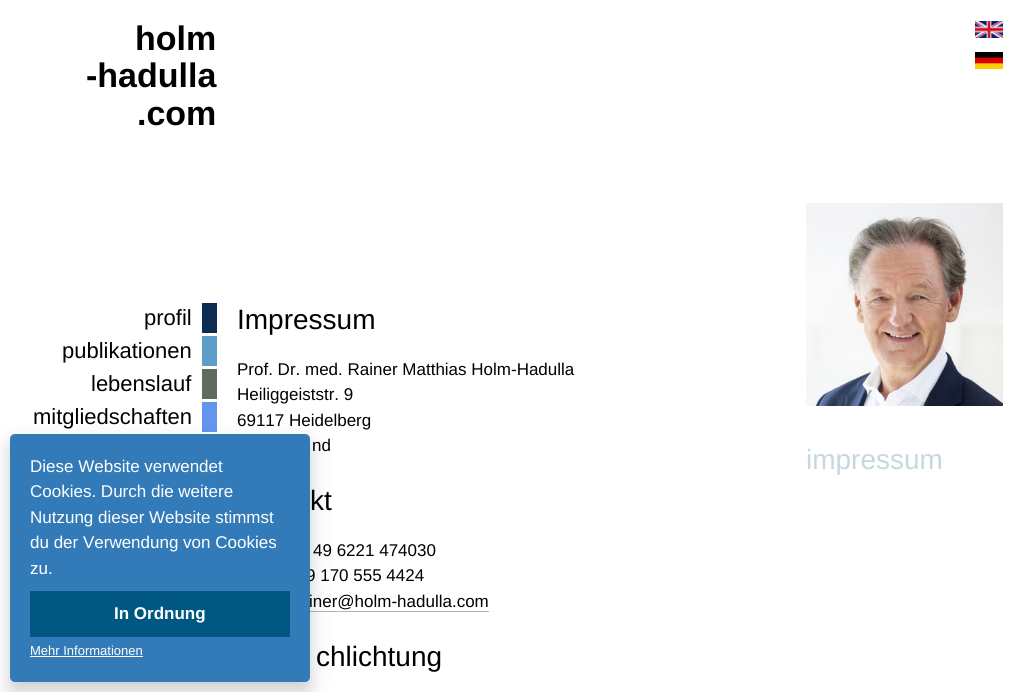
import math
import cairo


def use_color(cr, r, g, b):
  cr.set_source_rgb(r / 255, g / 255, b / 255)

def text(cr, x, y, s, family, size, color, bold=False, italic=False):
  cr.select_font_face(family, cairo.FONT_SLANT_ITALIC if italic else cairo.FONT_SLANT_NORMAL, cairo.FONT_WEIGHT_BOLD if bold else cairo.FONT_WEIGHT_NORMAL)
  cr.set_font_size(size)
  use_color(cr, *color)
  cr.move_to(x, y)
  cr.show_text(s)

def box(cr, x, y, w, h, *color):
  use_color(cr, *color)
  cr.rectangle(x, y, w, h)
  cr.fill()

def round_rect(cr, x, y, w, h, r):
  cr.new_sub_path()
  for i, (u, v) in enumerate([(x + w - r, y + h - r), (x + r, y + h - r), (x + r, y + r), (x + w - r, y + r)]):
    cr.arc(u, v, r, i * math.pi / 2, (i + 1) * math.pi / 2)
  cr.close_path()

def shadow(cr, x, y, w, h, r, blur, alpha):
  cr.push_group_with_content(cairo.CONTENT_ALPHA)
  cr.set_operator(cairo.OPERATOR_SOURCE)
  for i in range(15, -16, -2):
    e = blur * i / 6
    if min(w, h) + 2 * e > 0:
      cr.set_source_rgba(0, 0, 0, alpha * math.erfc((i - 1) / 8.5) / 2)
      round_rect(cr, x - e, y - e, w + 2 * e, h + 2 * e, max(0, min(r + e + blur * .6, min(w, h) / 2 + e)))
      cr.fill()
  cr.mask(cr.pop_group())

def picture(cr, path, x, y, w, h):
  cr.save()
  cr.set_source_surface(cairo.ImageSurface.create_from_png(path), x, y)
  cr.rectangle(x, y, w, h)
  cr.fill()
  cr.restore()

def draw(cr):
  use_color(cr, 255, 255, 255)
  cr.paint()
  picture(cr, "img_01.png", 975, 21, 28, 17)
  picture(cr, "img_02.png", 975, 52, 28, 17)
  box(cr, 202, 303, 15, 30, 12, 44, 82)
  box(cr, 202, 336, 15, 30, 94, 157, 200)
  box(cr, 202, 369, 15, 30, 95, 107, 97)
  box(cr, 202, 402, 15, 30, 100, 149, 237)
  box(cr, 310, 611, 179, 1, 178, 178, 178)
  picture(cr, "img_03.png", 806, 203, 197, 203)
  use_color(cr, 0, 0, 0)
  shadow(cr, 10, 444, 300, 248, 5, 10, 0.2)
  text(cr, 135, 50, "holm", "Liberation Sans", 34, (0, 0, 0), bold=True)
  text(cr, 86, 87, "-hadulla", "Liberation Sans", 34, (0, 0, 0), bold=True)
  text(cr, 137, 125, ".com", "Liberation Sans", 34, (0, 0, 0), bold=True)
  text(cr, 144, 325, "profil", "Liberation Sans", 22, (0, 0, 0))
  text(cr, 62, 358, "publikationen", "Liberation Sans", 22, (0, 0, 0))
  text(cr, 91, 391, "lebenslauf", "Liberation Sans", 22, (0, 0, 0))
  text(cr, 33, 424, "mitgliedschaften", "Liberation Sans", 22, (0, 0, 0))
  text(cr, 237, 329, "Impressum", "Liberation Sans", 28, (0, 0, 0))
  text(cr, 237, 375, "Prof. Dr. med. Rainer Matthias Holm-Hadulla", "Liberation Sans", 17, (0, 0, 0))
  text(cr, 237, 400, "Heiliggeiststr. 9", "Liberation Sans", 17, (0, 0, 0))
  text(cr, 237, 426, "69117 Heidelberg", "Liberation Sans", 17, (0, 0, 0))
  text(cr, 312, 451, "nd", "Liberation Sans", 17, (0, 0, 0))
  text(cr, 310, 510, "kt", "Liberation Sans", 28, (0, 0, 0))
  text(cr, 313, 556, "49 6221 474030", "Liberation Sans", 17, (0, 0, 0))
  text(cr, 306, 581, "9 170 555 4424", "Liberation Sans", 17, (0, 0, 0))
  text(cr, 309, 607, "iner@holm-hadulla.com", "Liberation Sans", 17, (0, 0, 0))
  text(cr, 316, 666, "chlichtung", "Liberation Sans", 28, (0, 0, 0))
  text(cr, 806, 469, "impressum", "Liberation Sans", 28, (198, 216, 222))
  use_color(cr, 51, 123, 184)
  round_rect(cr, 10, 434, 300, 248, 5)
  cr.fill()
  text(cr, 30, 472, "Diese Website verwendet", "Liberation Sans", 17, (255, 255, 255))
  text(cr, 30, 497, "Cookies. Durch die weitere", "Liberation Sans", 17, (255, 255, 255))
  text(cr, 30, 523, "Nutzung dieser Website stimmst", "Liberation Sans", 17, (255, 255, 255))
  text(cr, 30, 548, "du der Verwendung von Cookies", "Liberation Sans", 17, (255, 255, 255))
  text(cr, 30, 574, "zu.", "Liberation Sans", 17, (255, 255, 255))
  box(cr, 30, 591, 260, 46, 0, 88, 130)
  text(cr, 114, 619, "In Ordnung", "Liberation Sans", 17, (255, 255, 255), bold=True)
  text(cr, 30, 655, "Mehr Informationen", "Liberation Sans", 13, (255, 255, 255))
  box(cr, 30, 656, 113, 1, 255, 255, 255)


surface = cairo.ImageSurface(cairo.FORMAT_RGB24, 1023, 692)
cr = cairo.Context(surface)
options = cairo.FontOptions()
options.set_hint_metrics(cairo.HINT_METRICS_OFF)
options.set_hint_style(cairo.HINT_STYLE_NONE)
cr.set_font_options(options)
cr.set_miter_limit(4)
draw(cr)
surface.write_to_png("out.png")
